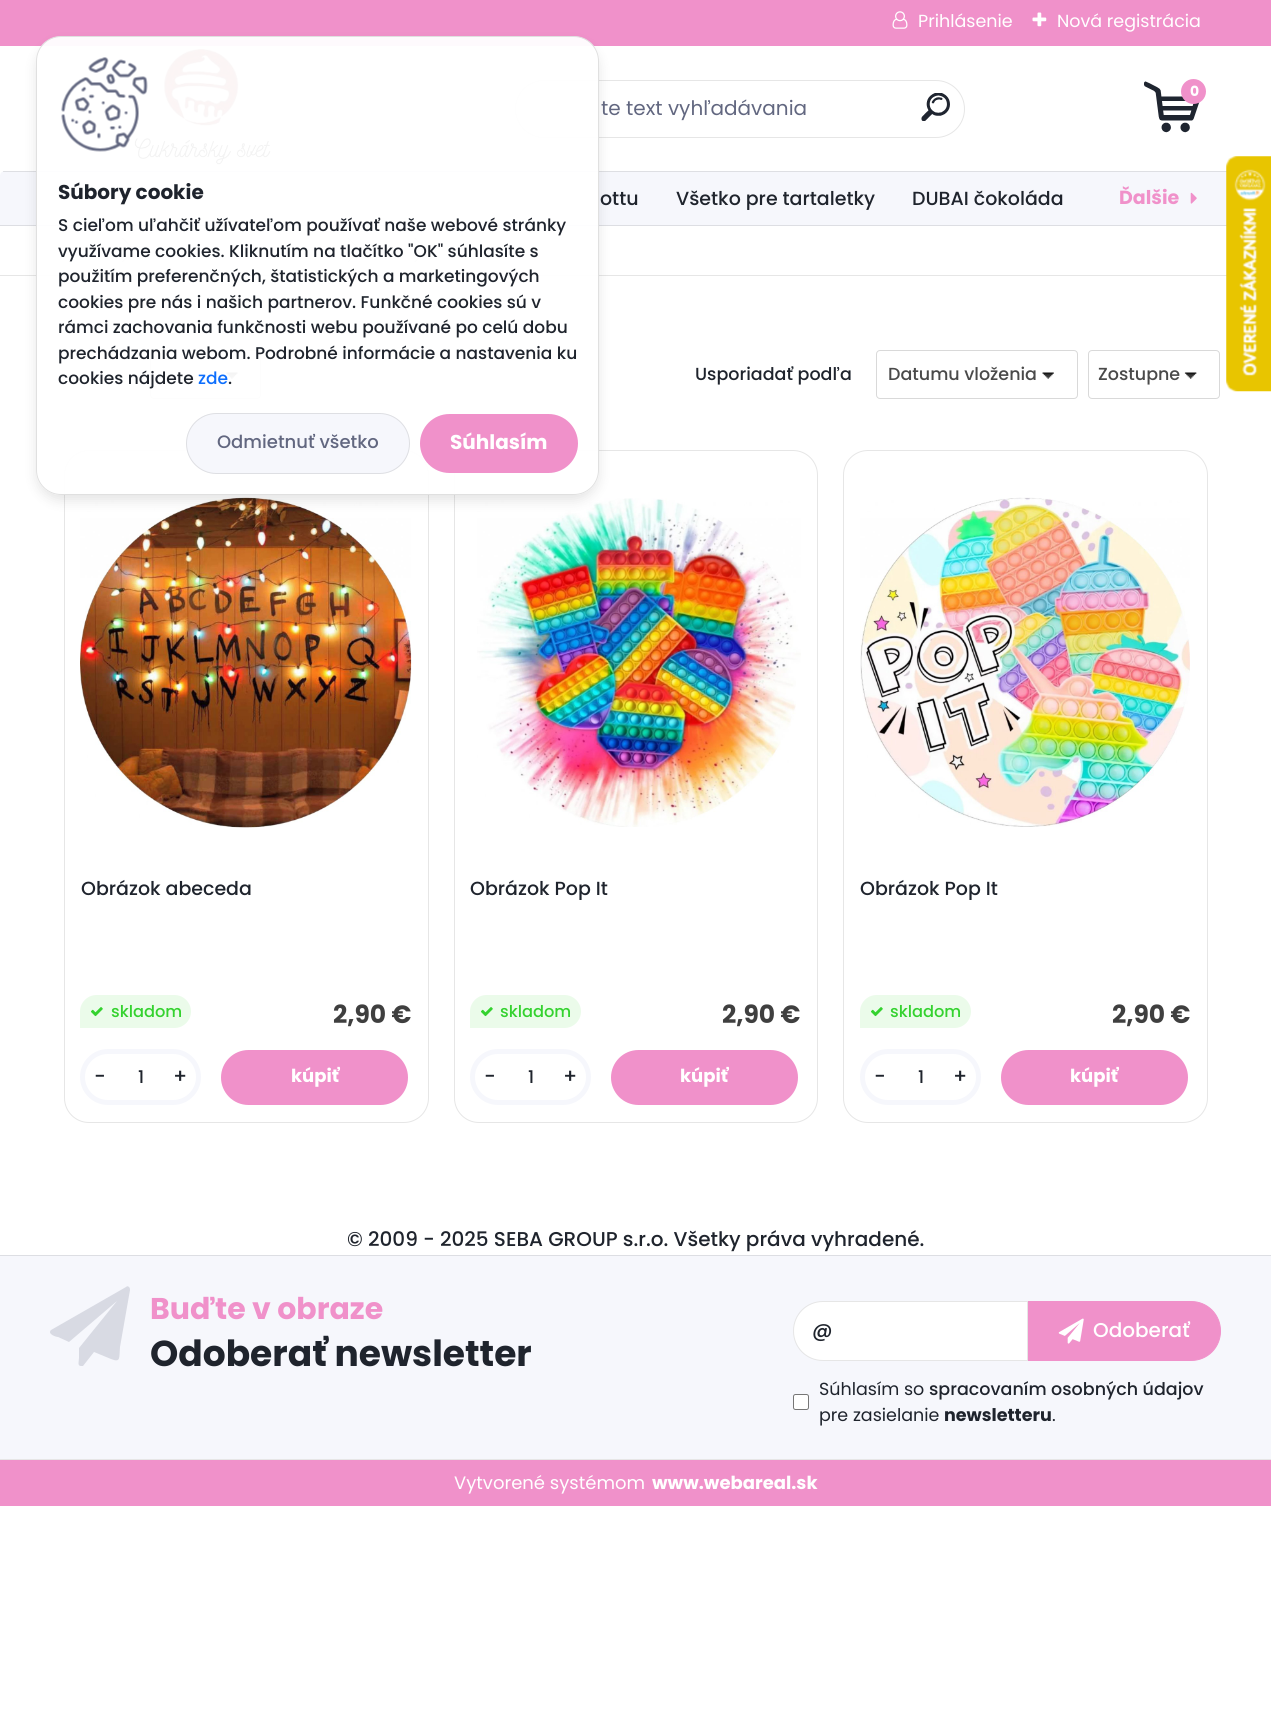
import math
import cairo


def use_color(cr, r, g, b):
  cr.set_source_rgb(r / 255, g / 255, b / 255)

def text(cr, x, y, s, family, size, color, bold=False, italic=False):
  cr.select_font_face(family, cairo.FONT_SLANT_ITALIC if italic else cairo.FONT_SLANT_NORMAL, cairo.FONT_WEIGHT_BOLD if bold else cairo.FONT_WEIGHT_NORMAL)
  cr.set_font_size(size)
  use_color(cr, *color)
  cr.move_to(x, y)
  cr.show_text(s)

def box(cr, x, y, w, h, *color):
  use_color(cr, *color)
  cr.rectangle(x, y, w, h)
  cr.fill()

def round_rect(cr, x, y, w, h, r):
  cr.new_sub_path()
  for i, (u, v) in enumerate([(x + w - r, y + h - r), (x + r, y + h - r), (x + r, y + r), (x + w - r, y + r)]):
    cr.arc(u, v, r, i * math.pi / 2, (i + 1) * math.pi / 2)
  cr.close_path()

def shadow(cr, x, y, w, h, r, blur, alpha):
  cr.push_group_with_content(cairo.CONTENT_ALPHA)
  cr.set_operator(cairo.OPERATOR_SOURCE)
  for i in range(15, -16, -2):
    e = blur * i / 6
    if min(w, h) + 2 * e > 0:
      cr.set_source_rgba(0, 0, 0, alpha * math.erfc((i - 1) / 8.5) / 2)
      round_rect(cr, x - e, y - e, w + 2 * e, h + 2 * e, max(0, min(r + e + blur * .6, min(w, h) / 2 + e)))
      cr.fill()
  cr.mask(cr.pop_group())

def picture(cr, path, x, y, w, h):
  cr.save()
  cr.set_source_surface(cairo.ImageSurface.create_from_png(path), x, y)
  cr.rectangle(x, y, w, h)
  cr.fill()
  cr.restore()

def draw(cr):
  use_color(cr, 255, 255, 255)
  cr.paint()
  box(cr, 0, 0, 1271, 46, 240, 145, 202)
  picture(cr, "img_01.png", 892, 11, 16, 18)
  picture(cr, "img_02.png", 1032, 12, 15, 15)
  picture(cr, "img_03.png", 134, 48, 137, 117)
  picture(cr, "img_04.png", 1144, 81, 56, 52)
  cr.arc(1193.5, 91.5, 12.5, 0, 2 * math.pi)
  cr.fill()
  round_rect(cr, 515.5, 80.5, 449, 57, 28.5)
  use_color(cr, 230, 230, 230)
  cr.set_line_width(1)
  cr.stroke()
  picture(cr, "img_05.png", 921, 93, 29, 28)
  use_color(cr, 246, 247, 252)
  cr.new_path()
  cr.move_to(5, 171)
  cr.line_to(1266, 171)
  cr.curve_to(1269, 171, 1271, 173, 1271, 176)
  cr.line_to(1271, 226)
  cr.line_to(0, 226)
  cr.line_to(0, 176)
  cr.curve_to(0, 173, 2, 171, 5, 171)
  cr.close_path()
  cr.fill()
  cr.set_source_rgba(0, 0, 0, 0.1)
  cr.rectangle(3, 171, 1224, 1)
  cr.fill()
  box(cr, 0, 225, 1227, 1, 221, 222, 227)
  picture(cr, "img_06.png", 1190, 192, 7, 12)
  box(cr, 0, 275, 1227, 1, 230, 230, 230)
  use_color(cr, 195, 195, 195)
  cr.new_path()
  cr.move_to(121.5, 238)
  cr.line_to(123, 238)
  cr.line_to(134.5, 250)
  cr.line_to(133.5, 250)
  cr.close_path()
  cr.move_to(133.5, 250)
  cr.line_to(134.5, 250)
  cr.line_to(123, 262)
  cr.line_to(121.5, 262)
  cr.close_path()
  cr.fill()
  cr.new_path()
  cr.move_to(347.5, 238)
  cr.line_to(348.5, 238)
  cr.line_to(360.5, 250)
  cr.line_to(359.5, 250)
  cr.close_path()
  cr.move_to(359.5, 250)
  cr.line_to(360.5, 250)
  cr.line_to(348.5, 262)
  cr.line_to(347.5, 262)
  cr.close_path()
  cr.fill()
  cr.new_path()
  cr.move_to(414, 238)
  cr.line_to(415.5, 238)
  cr.line_to(427.5, 250)
  cr.line_to(426, 250)
  cr.close_path()
  cr.move_to(426, 250)
  cr.line_to(427.5, 250)
  cr.line_to(415.5, 262)
  cr.line_to(414, 262)
  cr.close_path()
  cr.fill()
  round_rect(cr, 150.5, 350.5, 110, 48, 3.5)
  use_color(cr, 217, 217, 217)
  cr.stroke()
  picture(cr, "img_07.png", 226, 372, 12, 7)
  round_rect(cr, 876.5, 350.5, 201, 48, 3.5)
  cr.stroke()
  picture(cr, "img_08.png", 1042, 372, 12, 7)
  round_rect(cr, 1088.5, 350.5, 131, 48, 3.5)
  cr.stroke()
  picture(cr, "img_09.png", 1184, 372, 13, 7)
  round_rect(cr, 64.5, 450.5, 364, 672, 24.5)
  use_color(cr, 230, 230, 230)
  cr.stroke()
  picture(cr, "img_10.png", 80, 497, 332, 331)
  use_color(cr, 235, 251, 234)
  cr.new_path()
  cr.move_to(96.5, 995)
  cr.line_to(174.5, 995)
  cr.curve_to(183.5, 995, 191, 1002.5, 191, 1011.5)
  cr.curve_to(191, 1020.5, 183.5, 1028, 174.5, 1028)
  cr.line_to(80, 1028)
  cr.line_to(80, 1011.5)
  cr.curve_to(80, 1002.5, 87.5, 995, 96.5, 995)
  cr.close_path()
  cr.fill()
  picture(cr, "img_11.png", 91, 1007, 12, 10)
  round_rect(cr, 82.5, 1051.5, 116, 51, 25.5)
  use_color(cr, 246, 247, 252)
  cr.set_line_width(5)
  cr.stroke()
  use_color(cr, 240, 145, 202)
  round_rect(cr, 221, 1050, 187, 55, 27.5)
  cr.fill()
  round_rect(cr, 454.5, 450.5, 363, 672, 24.5)
  use_color(cr, 230, 230, 230)
  cr.set_line_width(1)
  cr.stroke()
  picture(cr, "img_12.png", 477, 498, 324, 329)
  use_color(cr, 235, 251, 234)
  cr.new_path()
  cr.move_to(486.5, 995)
  cr.line_to(564.5, 995)
  cr.curve_to(573.5, 995, 581, 1002.5, 581, 1011.5)
  cr.curve_to(581, 1020.5, 573.5, 1028, 564.5, 1028)
  cr.line_to(470, 1028)
  cr.line_to(470, 1011.5)
  cr.curve_to(470, 1002.5, 477.5, 995, 486.5, 995)
  cr.close_path()
  cr.fill()
  picture(cr, "img_11.png", 481, 1007, 12, 10)
  round_rect(cr, 472.5, 1051.5, 116, 51, 25.5)
  use_color(cr, 246, 247, 252)
  cr.set_line_width(5)
  cr.stroke()
  use_color(cr, 240, 145, 202)
  round_rect(cr, 611, 1050, 187, 55, 27.5)
  cr.fill()
  round_rect(cr, 843.5, 450.5, 364, 672, 24.5)
  use_color(cr, 230, 230, 230)
  cr.set_line_width(1)
  cr.stroke()
  picture(cr, "img_13.png", 860, 497, 330, 330)
  use_color(cr, 235, 251, 234)
  cr.new_path()
  cr.move_to(876.5, 995)
  cr.line_to(954.5, 995)
  cr.curve_to(963.5, 995, 971, 1002.5, 971, 1011.5)
  cr.curve_to(971, 1020.5, 963.5, 1028, 954.5, 1028)
  cr.line_to(860, 1028)
  cr.line_to(860, 1011.5)
  cr.curve_to(860, 1002.5, 867.5, 995, 876.5, 995)
  cr.close_path()
  cr.fill()
  picture(cr, "img_11.png", 871, 1007, 12, 10)
  round_rect(cr, 862.5, 1051.5, 116, 51, 25.5)
  use_color(cr, 246, 247, 252)
  cr.set_line_width(5)
  cr.stroke()
  use_color(cr, 240, 145, 202)
  round_rect(cr, 1001, 1050, 187, 55, 27.5)
  cr.fill()
  box(cr, 0, 1256, 1271, 203, 246, 247, 252)
  box(cr, 0, 1255, 1271, 1, 221, 222, 227)
  use_color(cr, 216, 218, 227)
  cr.new_path()
  cr.move_to(129, 1287)
  cr.curve_to(130, 1288, 130, 1289, 130, 1290)
  cr.line_to(120, 1347)
  cr.curve_to(119, 1358, 121, 1363, 111, 1359)
  cr.line_to(94, 1352)
  cr.line_to(83, 1366)
  cr.line_to(81, 1366)
  cr.curve_to(77, 1366, 79, 1361, 79, 1358)
  cr.line_to(79, 1348)
  cr.line_to(117, 1301)
  cr.line_to(69, 1342)
  cr.line_to(58, 1337)
  cr.curve_to(56, 1337, 47, 1334, 51, 1330)
  cr.line_to(126, 1287)
  cr.curve_to(127, 1286, 128, 1286, 129, 1287)
  cr.close_path()
  cr.fill()
  use_color(cr, 255, 255, 255)
  cr.new_path()
  cr.move_to(823, 1301)
  cr.line_to(1028, 1301)
  cr.line_to(1028, 1361)
  cr.line_to(823, 1361)
  cr.curve_to(806.5, 1361, 793, 1347.5, 793, 1331)
  cr.curve_to(793, 1314.5, 806.5, 1301, 823, 1301)
  cr.close_path()
  cr.fill()
  cr.new_path()
  cr.move_to(823, 1301.5)
  cr.line_to(1027.5, 1301.5)
  cr.line_to(1027.5, 1360.5)
  cr.line_to(823, 1360.5)
  cr.curve_to(806.5, 1360.5, 793.5, 1347.5, 793.5, 1331)
  cr.curve_to(793.5, 1314.5, 806.5, 1301.5, 823, 1301.5)
  cr.close_path()
  cr.set_source_rgba(0, 0, 0, 0.1)
  cr.set_line_width(1)
  cr.stroke()
  use_color(cr, 240, 145, 202)
  cr.new_path()
  cr.move_to(1028.5, 1301.5)
  cr.line_to(1191, 1301.5)
  cr.curve_to(1207.5, 1301.5, 1220.5, 1314.5, 1220.5, 1331)
  cr.curve_to(1220.5, 1347.5, 1207.5, 1360.5, 1191, 1360.5)
  cr.line_to(1028.5, 1360.5)
  cr.close_path()
  cr.fill_preserve()
  cr.stroke()
  picture(cr, "img_14.png", 1058, 1318, 26, 26)
  use_color(cr, 255, 255, 255)
  round_rect(cr, 793.5, 1394.5, 15, 15, 2)
  cr.fill_preserve()
  use_color(cr, 118, 118, 118)
  cr.stroke()
  box(cr, 0, 1459, 1271, 1, 230, 230, 230)
  box(cr, 0, 1460, 1271, 46, 240, 145, 202)
  picture(cr, "img_15.png", 1226, 156, 45, 236)
  cr.save()
  cr.set_fill_rule(cairo.FILL_RULE_EVEN_ODD)
  cr.new_path()
  cr.move_to(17, 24)
  cr.line_to(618, 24)
  cr.line_to(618, 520)
  cr.line_to(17, 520)
  cr.close_path()
  cr.move_to(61, 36)
  cr.line_to(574, 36)
  cr.curve_to(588, 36, 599, 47, 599, 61)
  cr.line_to(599, 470)
  cr.curve_to(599, 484, 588, 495, 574, 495)
  cr.line_to(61, 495)
  cr.curve_to(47, 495, 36, 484, 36, 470)
  cr.line_to(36, 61)
  cr.curve_to(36, 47, 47, 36, 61, 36)
  cr.close_path()
  cr.clip()
  use_color(cr, 0, 0, 0)
  shadow(cr, 36, 43, 563, 458, 25, 6, 0.1)
  cr.restore()
  cr.set_source_rgba(1, 1, 1, 0.95)
  round_rect(cr, 36.5, 36.5, 562, 458, 24.5)
  cr.fill_preserve()
  use_color(cr, 224, 224, 224)
  cr.stroke()
  picture(cr, "img_16.png", 61, 57, 87, 95)
  use_color(cr, 246, 247, 252)
  round_rect(cr, 186, 413, 224, 61, 30.5)
  cr.fill()
  round_rect(cr, 186.5, 413.5, 223, 60, 30)
  cr.set_source_rgba(0, 0, 0, 0.1)
  cr.stroke()
  use_color(cr, 240, 145, 202)
  round_rect(cr, 420, 414, 158, 59, 29.5)
  cr.fill()
  text(cr, 918, 27, "Prihlásenie", "Poppins", 17.5, (255, 255, 255))
  text(cr, 1057, 27, "Nová registrácia", "Poppins", 17.5, (255, 255, 255))
  text(cr, 1190, 96, "0", "Poppins", 14, (255, 255, 255), bold=True)
  text(cr, 601, 115, "te text vyhľadávania", "Poppins", 20, (98, 103, 128))
  text(cr, 600, 205, "ottu", "Poppins Medium", 19, (31, 36, 45))
  text(cr, 676, 205, "Všetko pre tartaletky", "Poppins Medium", 19, (31, 36, 45))
  text(cr, 912, 205, "DUBAI čokoláda", "Poppins Medium", 19, (31, 36, 45))
  text(cr, 1119, 204, "Ďalšie", "Poppins", 19, (240, 145, 202), bold=True)
  text(cr, 695, 380, "Usporiadať podľa", "Poppins Medium", 17.5, (31, 36, 45))
  text(cr, 888, 380, "Datumu vloženia", "Poppins Medium", 17.5, (74, 74, 74))
  text(cr, 1098, 380, "Zostupne", "Poppins Medium", 17.5, (74, 74, 74))
  text(cr, 81, 895, "Obrázok abeceda", "Poppins Medium", 19, (31, 36, 45))
  text(cr, 111, 1017, "skladom", "Poppins Medium", 16.25, (52, 210, 47))
  text(cr, 333, 1023, "2,90 €", "Poppins", 25, (63, 63, 63), bold=True)
  text(cr, 94, 1083, "-", "Poppins Medium", 20, (31, 36, 45))
  text(cr, 138, 1083, "1", "Poppins Medium", 17.5, (31, 36, 45))
  text(cr, 173, 1083, "+", "Poppins Medium", 20, (31, 36, 45))
  text(cr, 291, 1082, "kúpiť", "Poppins", 18, (255, 255, 255), bold=True)
  text(cr, 470, 895, "Obrázok Pop It", "Poppins Medium", 19, (31, 36, 45))
  text(cr, 500, 1017, "skladom", "Poppins Medium", 16.25, (52, 210, 47))
  text(cr, 722, 1023, "2,90 €", "Poppins", 25, (63, 63, 63), bold=True)
  text(cr, 484, 1083, "-", "Poppins Medium", 20, (31, 36, 45))
  text(cr, 528, 1083, "1", "Poppins Medium", 17.5, (31, 36, 45))
  text(cr, 563, 1083, "+", "Poppins Medium", 20, (31, 36, 45))
  text(cr, 680, 1082, "kúpiť", "Poppins", 18, (255, 255, 255), bold=True)
  text(cr, 860, 895, "Obrázok Pop It", "Poppins Medium", 19, (31, 36, 45))
  text(cr, 890, 1017, "skladom", "Poppins Medium", 16.25, (52, 210, 47))
  text(cr, 1112, 1023, "2,90 €", "Poppins", 25, (63, 63, 63), bold=True)
  text(cr, 874, 1083, "-", "Poppins Medium", 20, (31, 36, 45))
  text(cr, 918, 1083, "1", "Poppins Medium", 17.5, (31, 36, 45))
  text(cr, 953, 1083, "+", "Poppins Medium", 20, (31, 36, 45))
  text(cr, 1070, 1082, "kúpiť", "Poppins", 18, (255, 255, 255), bold=True)
  text(cr, 347, 1246, "© 2009 - 2025 SEBA GROUP s.r.o. Všetky práva vyhradené.", "Poppins Medium", 20, (31, 36, 45))
  text(cr, 150, 1319, "Buďte v obraze", "Poppins", 30, (240, 145, 202), bold=True)
  text(cr, 150, 1366, "Odoberať newsletter", "Poppins", 36, (31, 36, 45), bold=True)
  text(cr, 812, 1337, "@", "Poppins Medium", 20, (31, 36, 45))
  text(cr, 1093, 1337, "Odoberať", "Poppins Medium", 20, (255, 255, 255))
  text(cr, 819, 1395, "Súhlasím so", "Poppins", 17.5, (31, 36, 45))
  text(cr, 929, 1395, "spracovaním osobných údajov", "Poppins Medium", 17.5, (31, 36, 45))
  text(cr, 819, 1421, "pre zasielanie", "Poppins", 17.5, (31, 36, 45))
  text(cr, 944, 1421, "newsletteru", "Poppins", 17.5, (31, 36, 45), bold=True)
  text(cr, 1052, 1421, ".", "Poppins", 17.5, (31, 36, 45))
  text(cr, 454, 1489, "Vytvorené systémom", "Poppins", 18, (255, 255, 255))
  text(cr, 652, 1489, "www.webareal.sk", "Poppins", 18, (255, 255, 255), bold=True)
  text(cr, 58, 199, "Súbory cookie", "Poppins", 20, (31, 36, 45), bold=True)
  text(cr, 58, 231, "S cieľom uľahčiť užívateľom používať naše webové stránky", "Poppins Medium", 17, (31, 36, 45))
  text(cr, 58, 257, "využívame cookies. Kliknutím na tlačítko \"OK\" súhlasíte s", "Poppins Medium", 17, (31, 36, 45))
  text(cr, 58, 282, "použitím preferenčných, štatistických a marketingových", "Poppins Medium", 17, (31, 36, 45))
  text(cr, 58, 308, "cookies pre nás i našich partnerov. Funkčné cookies sú v", "Poppins Medium", 17, (31, 36, 45))
  text(cr, 58, 333, "rámci zachovania funkčnosti webu používané po celú dobu", "Poppins Medium", 17, (31, 36, 45))
  text(cr, 58, 359, "prechádzania webom. Podrobné informácie a nastavenia ku", "Poppins Medium", 17, (31, 36, 45))
  text(cr, 58, 384, "cookies nájdete", "Poppins Medium", 17, (31, 36, 45))
  text(cr, 198, 384, "zde", "Poppins Medium", 17, (13, 110, 253))
  text(cr, 228, 384, ".", "Poppins Medium", 17, (31, 36, 45))
  text(cr, 217, 448, "Odmietnuť všetko", "Poppins Medium", 18, (98, 103, 128))
  text(cr, 450, 449, "Súhlasím", "Poppins", 20, (255, 255, 255), bold=True)


surface = cairo.ImageSurface(cairo.FORMAT_RGB24, 1271, 1713)
cr = cairo.Context(surface)
options = cairo.FontOptions()
options.set_hint_metrics(cairo.HINT_METRICS_OFF)
options.set_hint_style(cairo.HINT_STYLE_NONE)
cr.set_font_options(options)
cr.set_miter_limit(4)
draw(cr)
surface.write_to_png("out.png")
